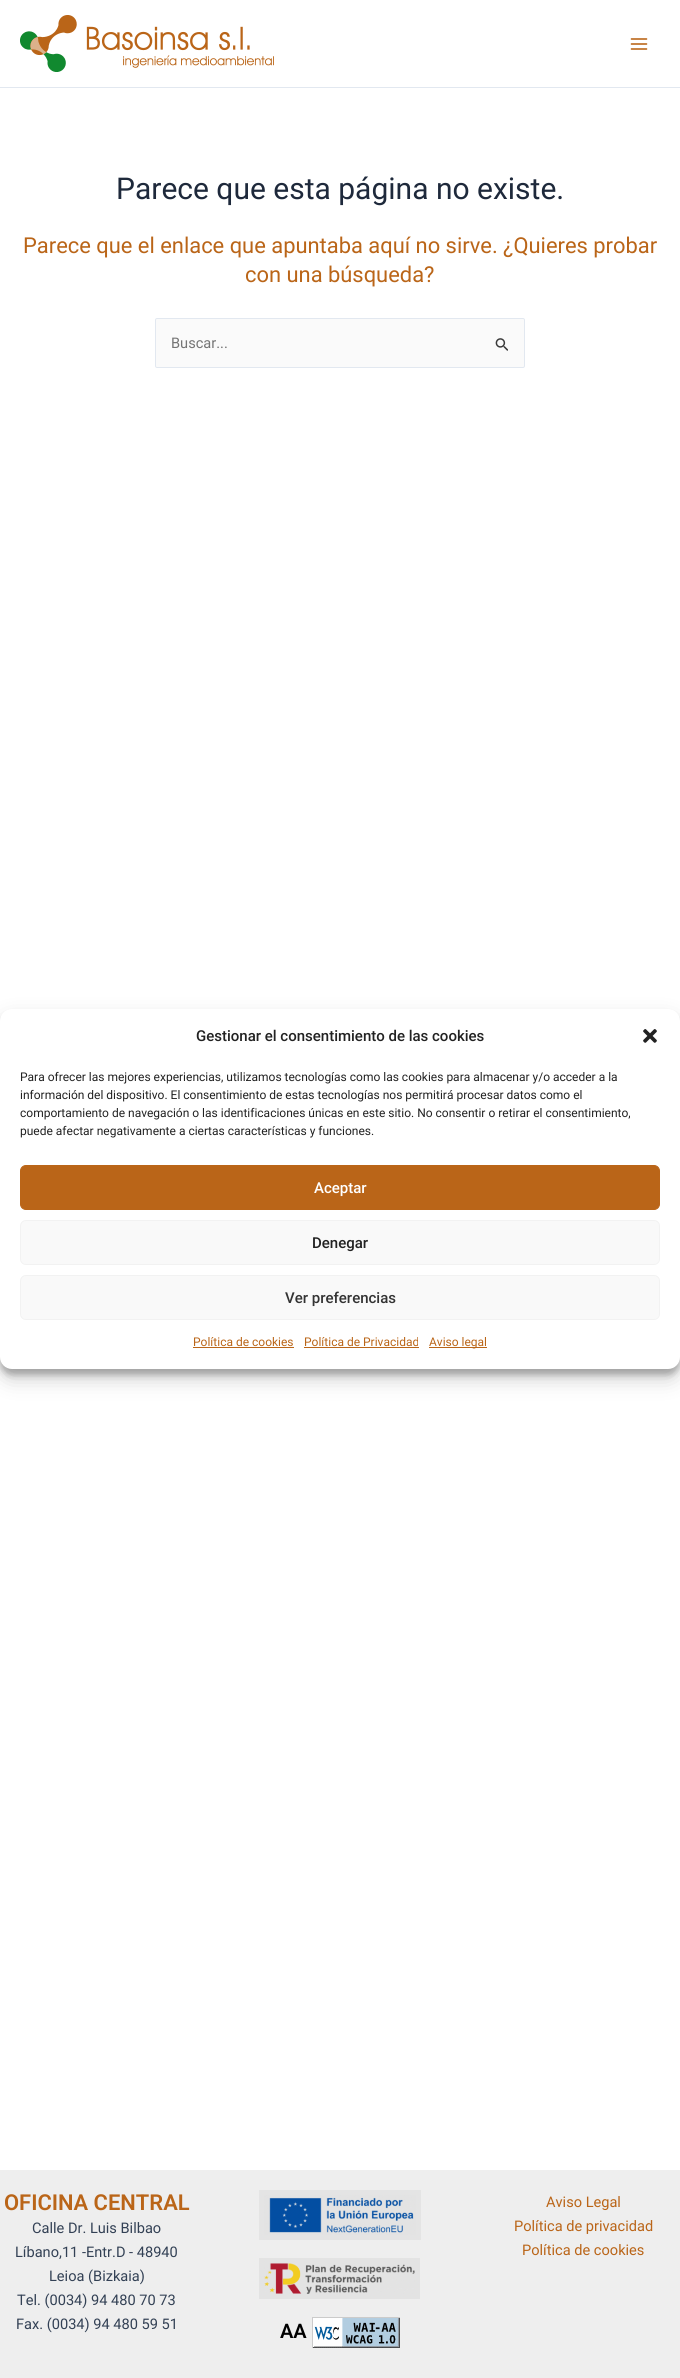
import math
import cairo


def use_color(cr, r, g, b):
  cr.set_source_rgb(r / 255, g / 255, b / 255)

def text(cr, x, y, s, family, size, color, bold=False, italic=False):
  cr.select_font_face(family, cairo.FONT_SLANT_ITALIC if italic else cairo.FONT_SLANT_NORMAL, cairo.FONT_WEIGHT_BOLD if bold else cairo.FONT_WEIGHT_NORMAL)
  cr.set_font_size(size)
  use_color(cr, *color)
  cr.move_to(x, y)
  cr.show_text(s)

def box(cr, x, y, w, h, *color):
  use_color(cr, *color)
  cr.rectangle(x, y, w, h)
  cr.fill()

def round_rect(cr, x, y, w, h, r):
  cr.new_sub_path()
  for i, (u, v) in enumerate([(x + w - r, y + h - r), (x + r, y + h - r), (x + r, y + r), (x + w - r, y + r)]):
    cr.arc(u, v, r, i * math.pi / 2, (i + 1) * math.pi / 2)
  cr.close_path()

def shadow(cr, x, y, w, h, r, blur, alpha):
  cr.push_group_with_content(cairo.CONTENT_ALPHA)
  cr.set_operator(cairo.OPERATOR_SOURCE)
  for i in range(15, -16, -2):
    e = blur * i / 6
    if min(w, h) + 2 * e > 0:
      cr.set_source_rgba(0, 0, 0, alpha * math.erfc((i - 1) / 8.5) / 2)
      round_rect(cr, x - e, y - e, w + 2 * e, h + 2 * e, max(0, min(r + e + blur * .6, min(w, h) / 2 + e)))
      cr.fill()
  cr.mask(cr.pop_group())

def picture(cr, path, x, y, w, h):
  cr.save()
  cr.set_source_surface(cairo.ImageSurface.create_from_png(path), x, y)
  cr.rectangle(x, y, w, h)
  cr.fill()
  cr.restore()

def draw(cr):
  use_color(cr, 255, 255, 255)
  cr.paint()
  box(cr, 0, 87, 680, 1, 226, 232, 240)
  picture(cr, "img_01.png", 20, 15, 254, 57)
  picture(cr, "img_02.png", 630, 38, 18, 12)
  use_color(cr, 250, 250, 250)
  round_rect(cr, 155.5, 318.5, 369, 49, 1.5)
  cr.fill_preserve()
  use_color(cr, 226, 232, 240)
  cr.set_line_width(1)
  cr.stroke()
  picture(cr, "img_03.png", 495, 338, 13, 13)
  box(cr, 0, 2170, 680, 208, 238, 238, 238)
  picture(cr, "img_04.png", 259, 2190, 162, 50)
  picture(cr, "img_05.png", 259, 2258, 161, 41)
  picture(cr, "img_06.png", 312, 2317, 88, 31)
  use_color(cr, 0, 0, 0)
  shadow(cr, 0, 1015, 680, 360, 12, 3, 0.23)
  shadow(cr, 0, 1019, 680, 360, 12, 10, 0.19)
  use_color(cr, 255, 255, 255)
  round_rect(cr, 0, 1009, 680, 360, 12)
  cr.fill()
  picture(cr, "img_07.png", 643, 1029, 14, 14)
  use_color(cr, 186, 101, 24)
  round_rect(cr, 20.5, 1165.5, 639, 44, 5.5)
  cr.fill_preserve()
  cr.stroke()
  use_color(cr, 249, 249, 249)
  round_rect(cr, 20.5, 1220.5, 639, 44, 5.5)
  cr.fill_preserve()
  use_color(cr, 242, 242, 242)
  cr.stroke()
  use_color(cr, 249, 249, 249)
  round_rect(cr, 20.5, 1275.5, 639, 44, 5.5)
  cr.fill_preserve()
  use_color(cr, 242, 242, 242)
  cr.stroke()
  box(cr, 193, 1347, 101, 1, 186, 101, 24)
  box(cr, 304, 1347, 115, 1, 186, 101, 24)
  box(cr, 429, 1347, 58, 1, 186, 101, 24)
  text(cr, 116, 199, "Parece que esta página no existe.", "Roboto", 30, (30, 41, 59))
  text(cr, 23, 253, "Parece que el enlace que apuntaba aquí no sirve. ¿Quieres probar", "Roboto", 21.9, (186, 101, 24))
  text(cr, 245, 282, "con una búsqueda?", "Roboto", 21.9, (186, 101, 24))
  text(cr, 171, 348, "Buscar...", "Roboto", 14.6, (117, 117, 117))
  text(cr, 4, 2210, "OFICINA CENTRAL", "Roboto SemiBold", 21.9, (186, 101, 24))
  text(cr, 32, 2233, "Calle Dr. Luis Bilbao", "Roboto", 14.6, (51, 65, 85))
  text(cr, 15, 2257, "Líbano,11 -Entr.D - 48940", "Roboto", 14.6, (51, 65, 85))
  text(cr, 49, 2281, "Leioa (Bizkaia)", "Roboto", 14.6, (51, 65, 85))
  text(cr, 17, 2305, "Tel. (0034) 94 480 70 73", "Roboto", 14.6, (51, 65, 85))
  text(cr, 16, 2329, "Fax. (0034) 94 480 59 51", "Roboto", 14.6, (51, 65, 85))
  text(cr, 546, 2207, "Aviso Legal", "Roboto", 14.6, (186, 101, 24))
  text(cr, 514, 2231, "Política de privacidad", "Roboto", 14.6, (186, 101, 24))
  text(cr, 522, 2255, "Política de cookies", "Roboto", 14.6, (186, 101, 24))
  text(cr, 280, 2338, "AA", "Roboto SemiBold", 20, (0, 0, 0))
  text(cr, 196, 1041, "Gestionar el consentimiento de las cookies", "Roboto Medium", 15, (34, 34, 34))
  text(cr, 20, 1081, "Para ofrecer las mejores experiencias, utilizamos tecnologías como las cookies para almacenar y/o acceder a la", "Roboto", 12, (34, 34, 34))
  text(cr, 20, 1099, "información del dispositivo. El consentimiento de estas tecnologías nos permitirá procesar datos como el", "Roboto", 12, (34, 34, 34))
  text(cr, 20, 1117, "comportamiento de navegación o las identificaciones únicas en este sitio. No consentir o retirar el consentimiento,", "Roboto", 12, (34, 34, 34))
  text(cr, 20, 1135, "puede afectar negativamente a ciertas características y funciones.", "Roboto", 12, (34, 34, 34))
  text(cr, 314, 1193, "Aceptar", "Roboto Medium", 15, (255, 255, 255))
  text(cr, 312, 1248, "Denegar", "Roboto Medium", 15, (34, 34, 34))
  text(cr, 285, 1303, "Ver preferencias", "Roboto Medium", 15, (51, 51, 51))
  text(cr, 193, 1346, "Política de cookies", "Roboto", 12, (186, 101, 24))
  text(cr, 304, 1346, "Política de Privacidad", "Roboto", 12, (186, 101, 24))
  text(cr, 429, 1346, "Aviso legal", "Roboto", 12, (186, 101, 24))


surface = cairo.ImageSurface(cairo.FORMAT_RGB24, 680, 2378)
cr = cairo.Context(surface)
options = cairo.FontOptions()
options.set_hint_metrics(cairo.HINT_METRICS_OFF)
options.set_hint_style(cairo.HINT_STYLE_NONE)
cr.set_font_options(options)
cr.set_miter_limit(4)
draw(cr)
surface.write_to_png("out.png")
